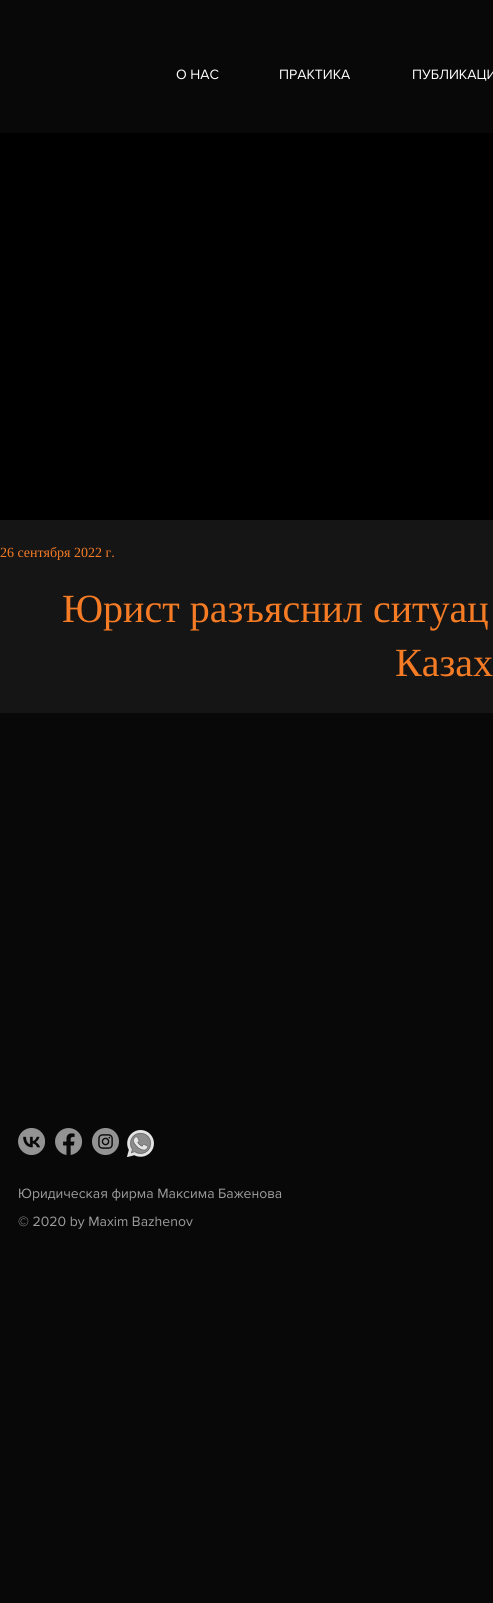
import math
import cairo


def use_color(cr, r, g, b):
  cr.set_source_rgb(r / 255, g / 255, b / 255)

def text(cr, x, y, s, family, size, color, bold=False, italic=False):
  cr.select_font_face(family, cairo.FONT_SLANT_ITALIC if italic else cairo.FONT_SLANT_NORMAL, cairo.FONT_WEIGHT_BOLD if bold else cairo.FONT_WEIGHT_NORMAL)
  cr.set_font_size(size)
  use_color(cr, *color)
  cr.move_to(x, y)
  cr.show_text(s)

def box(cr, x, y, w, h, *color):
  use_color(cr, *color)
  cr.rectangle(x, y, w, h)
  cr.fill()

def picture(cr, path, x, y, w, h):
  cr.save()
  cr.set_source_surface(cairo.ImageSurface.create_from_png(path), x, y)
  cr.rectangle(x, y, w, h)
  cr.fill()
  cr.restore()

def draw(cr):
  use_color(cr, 8, 8, 8)
  cr.paint()
  box(cr, 0, 133, 493, 387, 0, 0, 0)
  box(cr, 0, 520, 493, 193, 21, 21, 21)
  picture(cr, "img_01.png", 18, 1128, 27, 27)
  picture(cr, "img_02.png", 55, 1128, 27, 27)
  picture(cr, "img_03.png", 92, 1128, 27, 27)
  picture(cr, "img_04.png", 127, 1130, 27, 27)
  text(cr, 176, 79, "О НАС", "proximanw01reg", 14, (255, 255, 255))
  text(cr, 279, 79, "ПРАКТИКА", "proximanw01reg", 14, (255, 255, 255))
  text(cr, 412, 79, "ПУБЛИКАЦИ", "proximanw01reg", 14, (255, 255, 255))
  text(cr, 0, 557, "26 сентября 2022 г.", "Liberation Serif", 14, (245, 123, 37))
  text(cr, 62, 622, "Юрист разъяснил ситуац", "Liberation Serif", 40, (245, 123, 37))
  text(cr, 395, 676, "Казах", "Liberation Serif", 40, (245, 123, 37))
  text(cr, 18, 1198, "Юридическая фирма Максима Баженова", "proximanw01reg", 14, (156, 156, 156))
  text(cr, 18, 1226, "© 2020 by Maxim Bazhenov", "proximanw01reg", 14, (156, 156, 156))


surface = cairo.ImageSurface(cairo.FORMAT_RGB24, 493, 1603)
cr = cairo.Context(surface)
options = cairo.FontOptions()
options.set_hint_metrics(cairo.HINT_METRICS_OFF)
options.set_hint_style(cairo.HINT_STYLE_NONE)
cr.set_font_options(options)
cr.set_miter_limit(4)
draw(cr)
surface.write_to_png("out.png")
